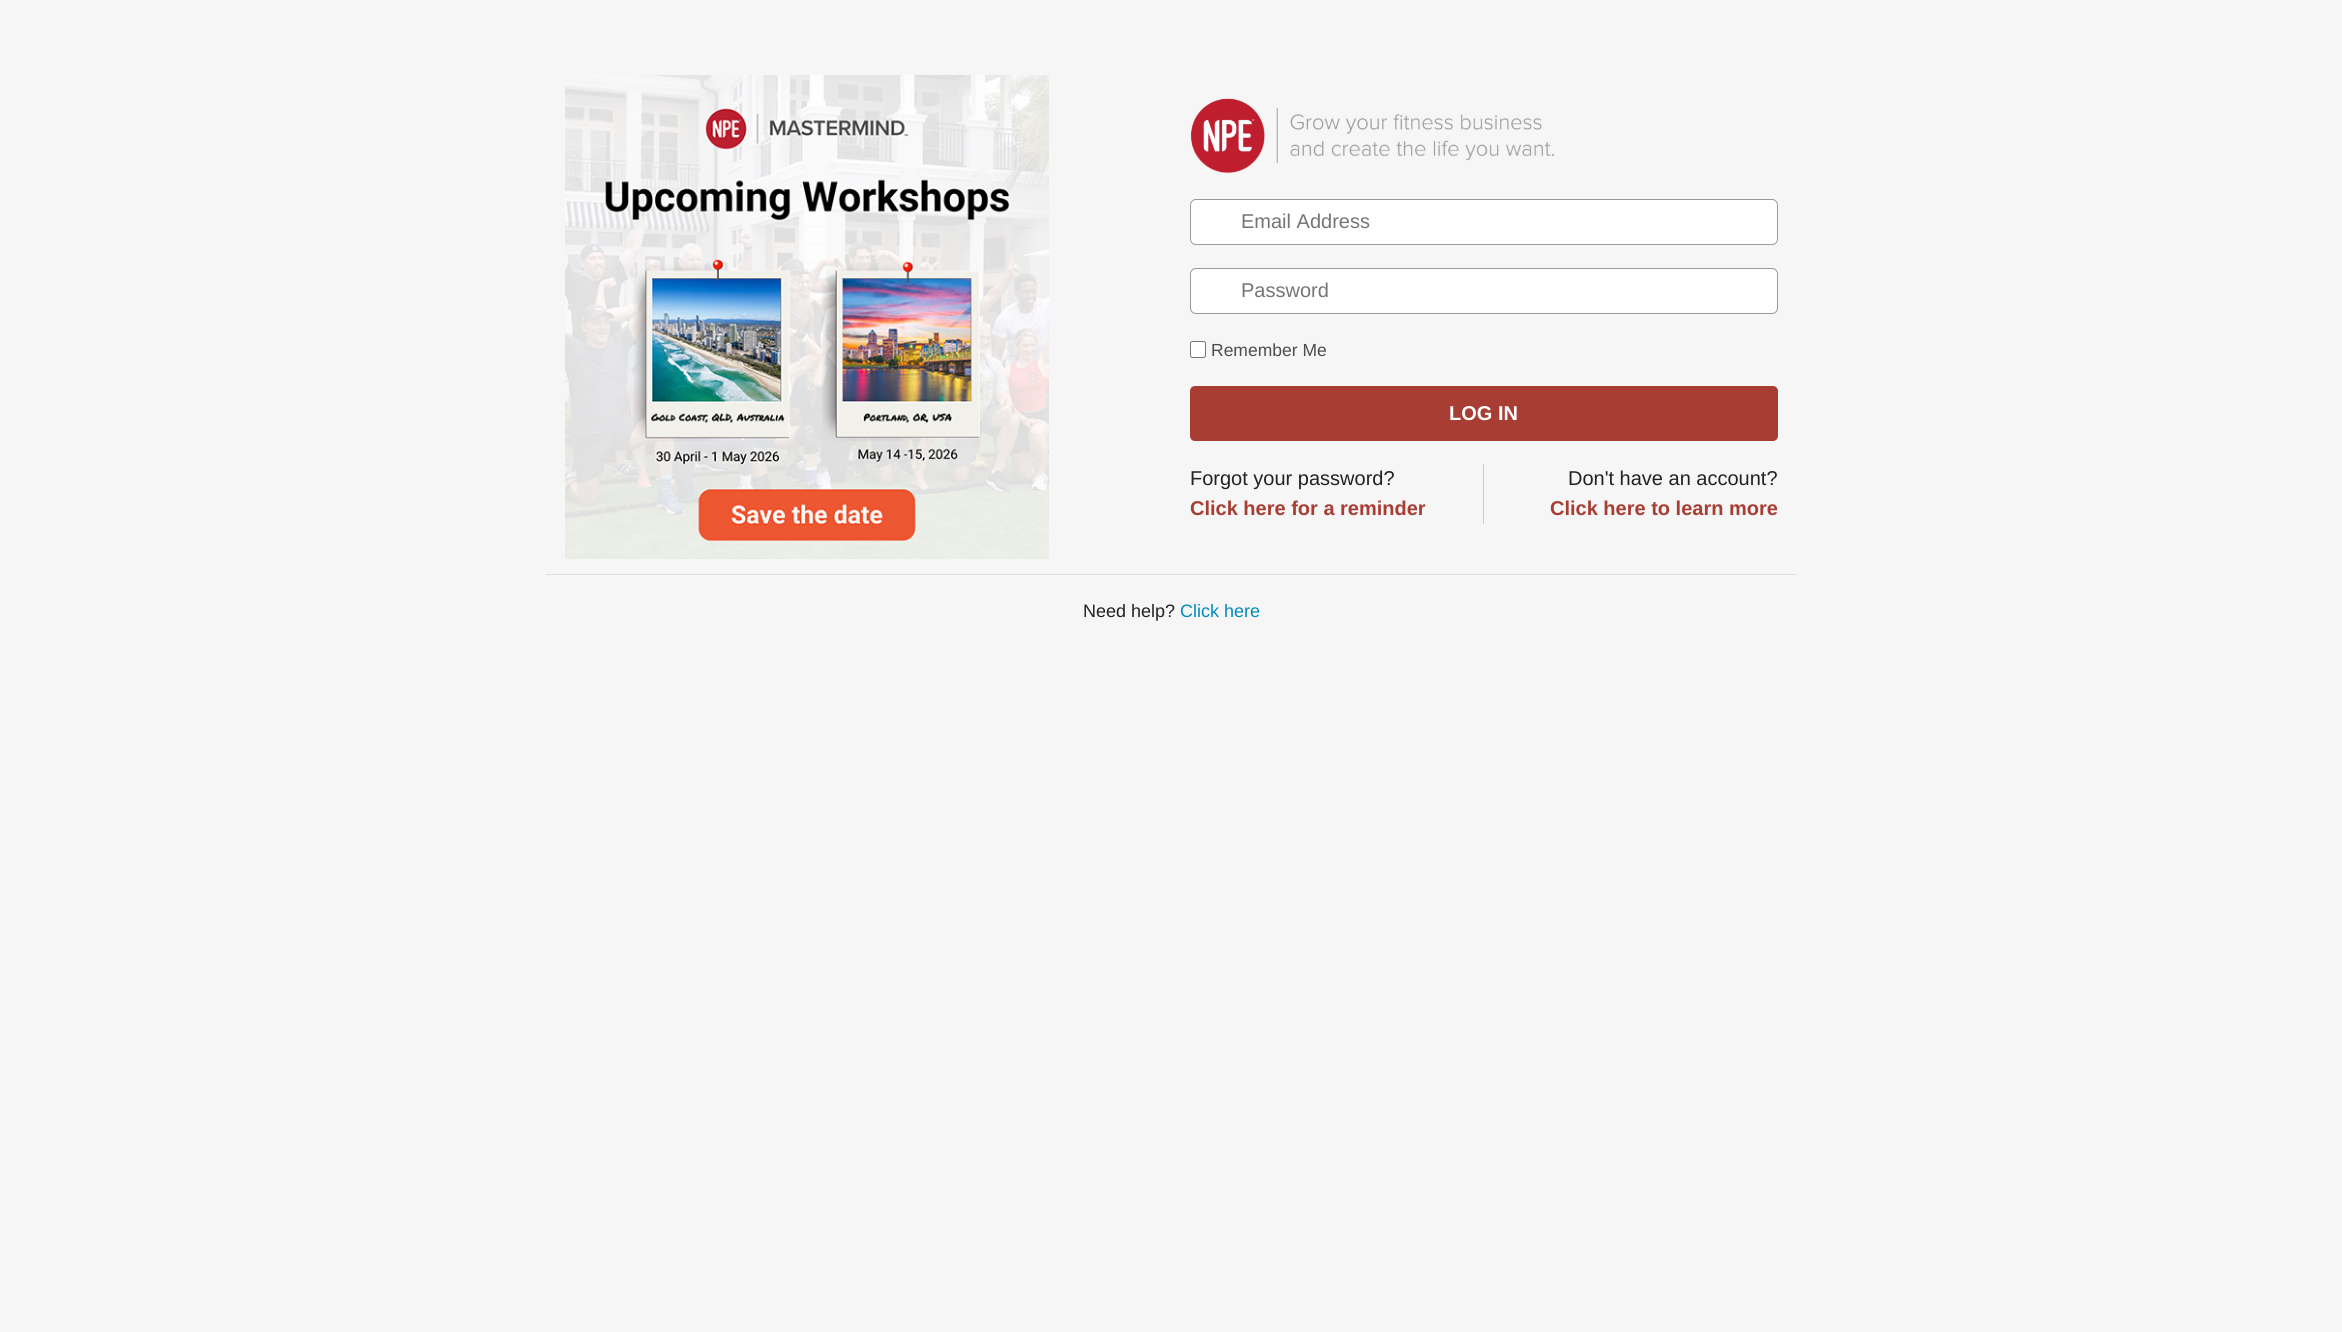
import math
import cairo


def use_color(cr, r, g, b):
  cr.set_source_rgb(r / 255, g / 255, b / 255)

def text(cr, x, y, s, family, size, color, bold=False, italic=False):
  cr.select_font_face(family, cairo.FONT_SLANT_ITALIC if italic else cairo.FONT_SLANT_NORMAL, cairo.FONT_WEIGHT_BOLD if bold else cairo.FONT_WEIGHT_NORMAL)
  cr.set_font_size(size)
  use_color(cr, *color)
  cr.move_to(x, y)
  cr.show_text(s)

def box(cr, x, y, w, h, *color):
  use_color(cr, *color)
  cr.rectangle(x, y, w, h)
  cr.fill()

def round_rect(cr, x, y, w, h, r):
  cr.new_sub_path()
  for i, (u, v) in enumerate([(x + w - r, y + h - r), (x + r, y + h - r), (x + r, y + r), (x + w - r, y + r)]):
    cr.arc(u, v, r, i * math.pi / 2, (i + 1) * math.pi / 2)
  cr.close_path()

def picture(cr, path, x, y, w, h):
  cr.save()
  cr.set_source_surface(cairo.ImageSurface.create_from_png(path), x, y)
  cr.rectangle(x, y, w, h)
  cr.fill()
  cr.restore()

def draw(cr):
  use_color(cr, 246, 246, 246)
  cr.paint()
  picture(cr, "img_01.png", 565, 75, 484, 484)
  picture(cr, "img_02.png", 1190, 98, 365, 76)
  use_color(cr, 255, 255, 255)
  round_rect(cr, 1190.5, 199.5, 587, 45, 5.5)
  cr.fill_preserve()
  use_color(cr, 153, 153, 153)
  cr.set_line_width(1)
  cr.stroke()
  use_color(cr, 255, 255, 255)
  round_rect(cr, 1190.5, 268.5, 587, 45, 5.5)
  cr.fill_preserve()
  use_color(cr, 153, 153, 153)
  cr.stroke()
  use_color(cr, 255, 255, 255)
  round_rect(cr, 1190.5, 341.5, 15, 16, 2)
  cr.fill_preserve()
  use_color(cr, 118, 118, 118)
  cr.stroke()
  use_color(cr, 168, 61, 51)
  round_rect(cr, 1190, 386, 588, 55, 5)
  cr.fill()
  box(cr, 1483, 464, 1, 60, 204, 204, 204)
  box(cr, 546, 574, 1250, 1, 221, 221, 221)
  text(cr, 1241, 228, "Email Address", "Liberation Sans", 20, (117, 117, 117))
  text(cr, 1241, 297, "Password", "Liberation Sans", 20, (117, 117, 117))
  text(cr, 1211, 356, "Remember Me", "Liberation Sans", 17.5, (77, 77, 77))
  text(cr, 1449, 420, "LOG IN", "Liberation Sans", 20, (255, 255, 255), bold=True)
  text(cr, 1190, 485, "Forgot your password?", "Liberation Sans", 20, (34, 34, 34))
  text(cr, 1190, 515, "Click here for a reminder", "Liberation Sans", 20, (168, 61, 51), bold=True)
  text(cr, 1568, 485, "Don't have an account?", "Liberation Sans", 20, (34, 34, 34))
  text(cr, 1550, 515, "Click here to learn more", "Liberation Sans", 20, (168, 61, 51), bold=True)
  text(cr, 1083, 617, "Need help?", "Liberation Sans", 18, (34, 34, 34))
  text(cr, 1180, 617, "Click here", "Liberation Sans", 18, (0, 140, 186))


surface = cairo.ImageSurface(cairo.FORMAT_RGB24, 2342, 1332)
cr = cairo.Context(surface)
options = cairo.FontOptions()
options.set_hint_metrics(cairo.HINT_METRICS_OFF)
options.set_hint_style(cairo.HINT_STYLE_NONE)
cr.set_font_options(options)
cr.set_miter_limit(4)
draw(cr)
surface.write_to_png("out.png")
